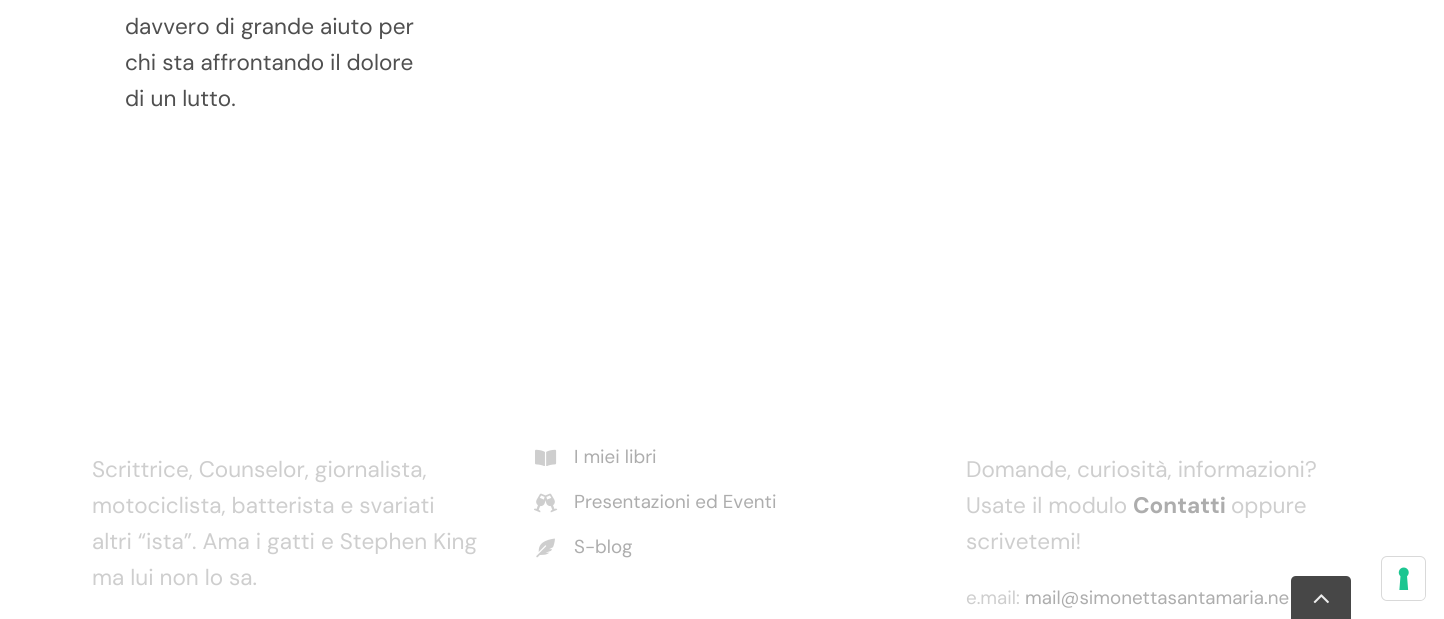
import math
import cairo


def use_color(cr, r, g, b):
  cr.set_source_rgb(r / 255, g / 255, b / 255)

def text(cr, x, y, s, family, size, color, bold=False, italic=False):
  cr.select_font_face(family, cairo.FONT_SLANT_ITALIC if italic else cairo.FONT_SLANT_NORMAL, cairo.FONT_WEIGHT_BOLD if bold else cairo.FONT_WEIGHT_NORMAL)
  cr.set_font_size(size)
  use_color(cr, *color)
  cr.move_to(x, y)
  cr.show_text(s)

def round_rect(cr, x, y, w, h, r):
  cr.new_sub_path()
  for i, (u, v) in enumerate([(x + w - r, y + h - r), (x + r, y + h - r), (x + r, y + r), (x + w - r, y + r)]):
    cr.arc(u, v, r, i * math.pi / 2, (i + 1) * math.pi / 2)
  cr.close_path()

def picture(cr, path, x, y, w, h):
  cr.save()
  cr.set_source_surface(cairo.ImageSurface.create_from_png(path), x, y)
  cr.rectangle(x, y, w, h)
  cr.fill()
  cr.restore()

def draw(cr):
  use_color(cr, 255, 255, 255)
  cr.paint()
  picture(cr, "img_01.png", 535, 449, 22, 17)
  picture(cr, "img_02.png", 534, 493, 24, 20)
  picture(cr, "img_03.png", 536, 538, 19, 20)
  cr.set_source_rgba(0.2, 0.2, 0.2, 0.9)
  cr.new_path()
  cr.move_to(1296, 576)
  cr.line_to(1346, 576)
  cr.curve_to(1349, 576, 1351, 578, 1351, 581)
  cr.line_to(1351, 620)
  cr.line_to(1291, 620)
  cr.line_to(1291, 581)
  cr.curve_to(1291, 578, 1293, 576, 1296, 576)
  cr.close_path()
  cr.fill()
  picture(cr, "img_04.png", 1313, 594, 16, 10)
  round_rect(cr, 1381.5, 556.5, 44, 44, 5.5)
  use_color(cr, 217, 217, 217)
  cr.set_line_width(1)
  cr.stroke()
  use_color(cr, 255, 255, 255)
  round_rect(cr, 1383, 558, 42, 42, 5)
  cr.fill()
  picture(cr, "img_05.png", 1398, 567, 11, 23)
  text(cr, 125, 34, "davvero di grande aiuto per", "DM Sans", 22.5, (79, 79, 79))
  text(cr, 125, 70, "chi sta affrontando il dolore", "DM Sans", 22.5, (79, 79, 79))
  text(cr, 125, 106, "di un lutto.", "DM Sans", 22.5, (79, 79, 79))
  text(cr, 92, 477, "Scrittrice, Counselor, giornalista,", "DM Sans", 22.5, (206, 206, 206))
  text(cr, 92, 513, "motociclista, batterista e svariati", "DM Sans", 22.5, (206, 206, 206))
  text(cr, 92, 549, "altri “ista”. Ama i gatti e Stephen King", "DM Sans", 22.5, (206, 206, 206))
  text(cr, 92, 585, "ma lui non lo sa.", "DM Sans", 22.5, (206, 206, 206))
  text(cr, 574, 463, "I miei libri", "DM Sans", 18.75, (173, 173, 173))
  text(cr, 574, 508, "Presentazioni ed Eventi", "DM Sans", 18.75, (173, 173, 173))
  text(cr, 574, 553, "S-blog", "DM Sans", 18.75, (173, 173, 173))
  text(cr, 966, 477, "Domande, curiosità, informazioni?", "DM Sans", 22.5, (206, 206, 206))
  text(cr, 966, 513, "Usate il modulo", "DM Sans", 22.5, (206, 206, 206))
  text(cr, 1133, 513, "Contatti", "DM Sans", 22.5, (173, 173, 173), bold=True)
  text(cr, 1231, 513, "oppure", "DM Sans", 22.5, (206, 206, 206))
  text(cr, 966, 549, "scrivetemi!", "DM Sans", 22.5, (206, 206, 206))
  text(cr, 966, 604, "e.mail:", "DM Sans", 18.75, (206, 206, 206))
  text(cr, 1025, 604, "mail@simonettasantamaria.ne", "DM Sans", 18.75, (173, 173, 173))


surface = cairo.ImageSurface(cairo.FORMAT_RGB24, 1444, 619)
cr = cairo.Context(surface)
options = cairo.FontOptions()
options.set_hint_metrics(cairo.HINT_METRICS_OFF)
options.set_hint_style(cairo.HINT_STYLE_NONE)
cr.set_font_options(options)
cr.set_miter_limit(4)
draw(cr)
surface.write_to_png("out.png")
